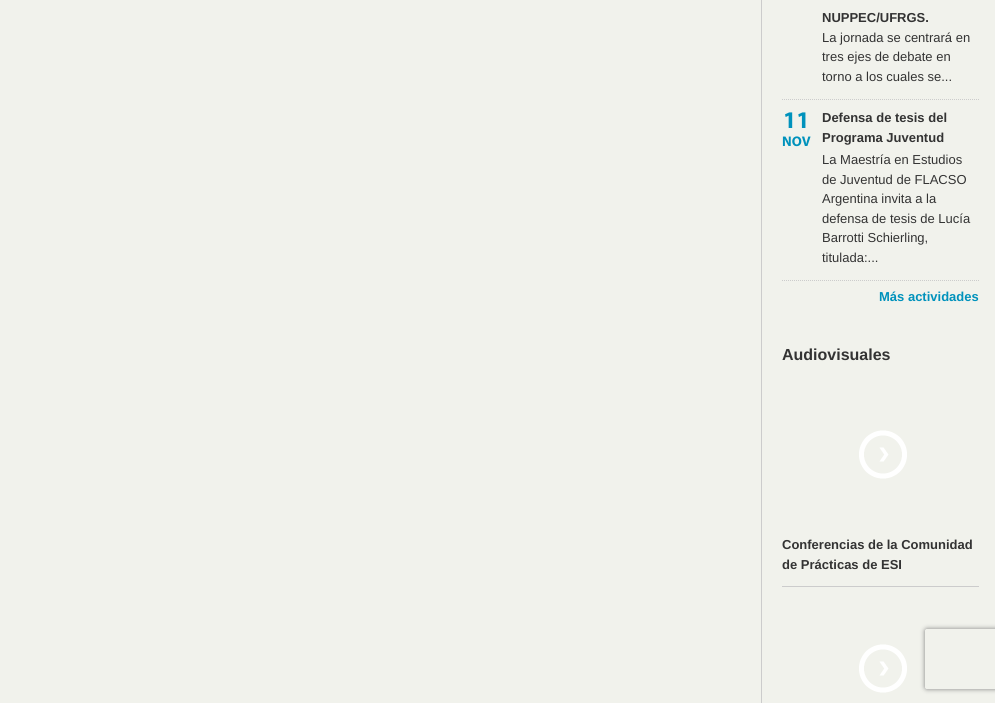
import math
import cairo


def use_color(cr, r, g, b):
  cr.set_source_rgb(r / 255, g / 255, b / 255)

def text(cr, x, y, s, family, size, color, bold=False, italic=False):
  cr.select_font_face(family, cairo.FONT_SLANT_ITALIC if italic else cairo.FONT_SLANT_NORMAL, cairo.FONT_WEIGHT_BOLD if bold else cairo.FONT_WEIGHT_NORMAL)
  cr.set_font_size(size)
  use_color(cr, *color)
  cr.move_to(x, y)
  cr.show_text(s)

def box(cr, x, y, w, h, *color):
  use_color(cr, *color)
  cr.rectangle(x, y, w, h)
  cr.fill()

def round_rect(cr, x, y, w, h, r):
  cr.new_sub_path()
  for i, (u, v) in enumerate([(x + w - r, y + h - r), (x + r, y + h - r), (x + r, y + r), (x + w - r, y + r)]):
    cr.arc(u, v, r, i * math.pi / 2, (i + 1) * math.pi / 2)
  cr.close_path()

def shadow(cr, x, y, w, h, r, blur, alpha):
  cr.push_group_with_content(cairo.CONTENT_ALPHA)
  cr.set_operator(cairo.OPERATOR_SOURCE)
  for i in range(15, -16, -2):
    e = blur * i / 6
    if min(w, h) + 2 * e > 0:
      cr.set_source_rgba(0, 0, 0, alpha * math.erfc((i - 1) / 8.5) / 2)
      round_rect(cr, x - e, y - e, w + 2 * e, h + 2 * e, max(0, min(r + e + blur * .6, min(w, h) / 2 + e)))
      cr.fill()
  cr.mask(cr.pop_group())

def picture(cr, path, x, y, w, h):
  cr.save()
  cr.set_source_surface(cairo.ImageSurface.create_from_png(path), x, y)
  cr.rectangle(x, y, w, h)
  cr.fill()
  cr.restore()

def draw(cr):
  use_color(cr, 241, 242, 236)
  cr.paint()
  box(cr, 761, 0, 1, 703, 204, 204, 204)
  cr.new_path()
  cr.move_to(782, 99.5)
  cr.line_to(979, 99.5)
  cr.set_line_width(1)
  cr.set_dash([1, 1])
  cr.stroke()
  cr.new_path()
  cr.move_to(782, 280.5)
  cr.line_to(979, 280.5)
  cr.stroke()
  box(cr, 782, 586, 197, 1, 204, 204, 204)
  picture(cr, "img_01.png", 859, 430, 48, 49)
  picture(cr, "img_01.png", 859, 644, 48, 49)
  cr.save()
  cr.set_fill_rule(cairo.FILL_RULE_EVEN_ODD)
  cr.new_path()
  cr.move_to(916, 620)
  cr.line_to(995, 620)
  cr.line_to(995, 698)
  cr.line_to(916, 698)
  cr.close_path()
  cr.move_to(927, 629)
  cr.line_to(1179, 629)
  cr.curve_to(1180, 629, 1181, 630, 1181, 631)
  cr.line_to(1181, 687)
  cr.curve_to(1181, 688, 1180, 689, 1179, 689)
  cr.line_to(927, 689)
  cr.curve_to(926, 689, 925, 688, 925, 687)
  cr.line_to(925, 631)
  cr.curve_to(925, 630, 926, 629, 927, 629)
  cr.close_path()
  cr.clip()
  use_color(cr, 128, 128, 128)
  shadow(cr, 925, 629, 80, 60, 2, 2.5, 1)
  cr.restore()
  text(cr, 822, 22, "NUPPEC/UFRGS.", "Liberation Sans", 13, (51, 51, 51), bold=True)
  text(cr, 822, 42, "La jornada se centrará en", "Liberation Sans", 13, (51, 51, 51))
  text(cr, 822, 61, "tres ejes de debate en", "Liberation Sans", 13, (51, 51, 51))
  text(cr, 822, 81, "torno a los cuales se...", "Liberation Sans", 13, (51, 51, 51))
  text(cr, 783, 128, "11", "myriad", 24, (0, 146, 188), bold=True)
  text(cr, 782, 146, "NOV", "myriad", 14, (0, 146, 188), bold=True)
  text(cr, 822, 122, "Defensa de tesis del", "Liberation Sans", 13, (51, 51, 51), bold=True)
  text(cr, 822, 142, "Programa Juventud", "Liberation Sans", 13, (51, 51, 51), bold=True)
  text(cr, 822, 164, "La Maestría en Estudios", "Liberation Sans", 13, (51, 51, 51))
  text(cr, 822, 184, "de Juventud de FLACSO", "Liberation Sans", 13, (51, 51, 51))
  text(cr, 822, 203, "Argentina invita a la", "Liberation Sans", 13, (51, 51, 51))
  text(cr, 822, 223, "defensa de tesis de Lucía", "Liberation Sans", 13, (51, 51, 51))
  text(cr, 822, 242, "Barrotti Schierling,", "Liberation Sans", 13, (51, 51, 51))
  text(cr, 822, 262, "titulada:...", "Liberation Sans", 13, (51, 51, 51))
  text(cr, 879, 301, "Más actividades", "Liberation Sans", 13, (0, 146, 188), bold=True)
  text(cr, 782, 360, "Audiovisuales", "Liberation Sans", 16, (51, 51, 51), bold=True)
  text(cr, 782, 549, "Conferencias de la Comunidad", "Liberation Sans", 13, (51, 51, 51), bold=True)
  text(cr, 782, 569, "de Prácticas de ESI", "Liberation Sans", 13, (51, 51, 51), bold=True)


surface = cairo.ImageSurface(cairo.FORMAT_RGB24, 995, 703)
cr = cairo.Context(surface)
options = cairo.FontOptions()
options.set_hint_metrics(cairo.HINT_METRICS_OFF)
options.set_hint_style(cairo.HINT_STYLE_NONE)
cr.set_font_options(options)
cr.set_miter_limit(4)
draw(cr)
surface.write_to_png("out.png")
